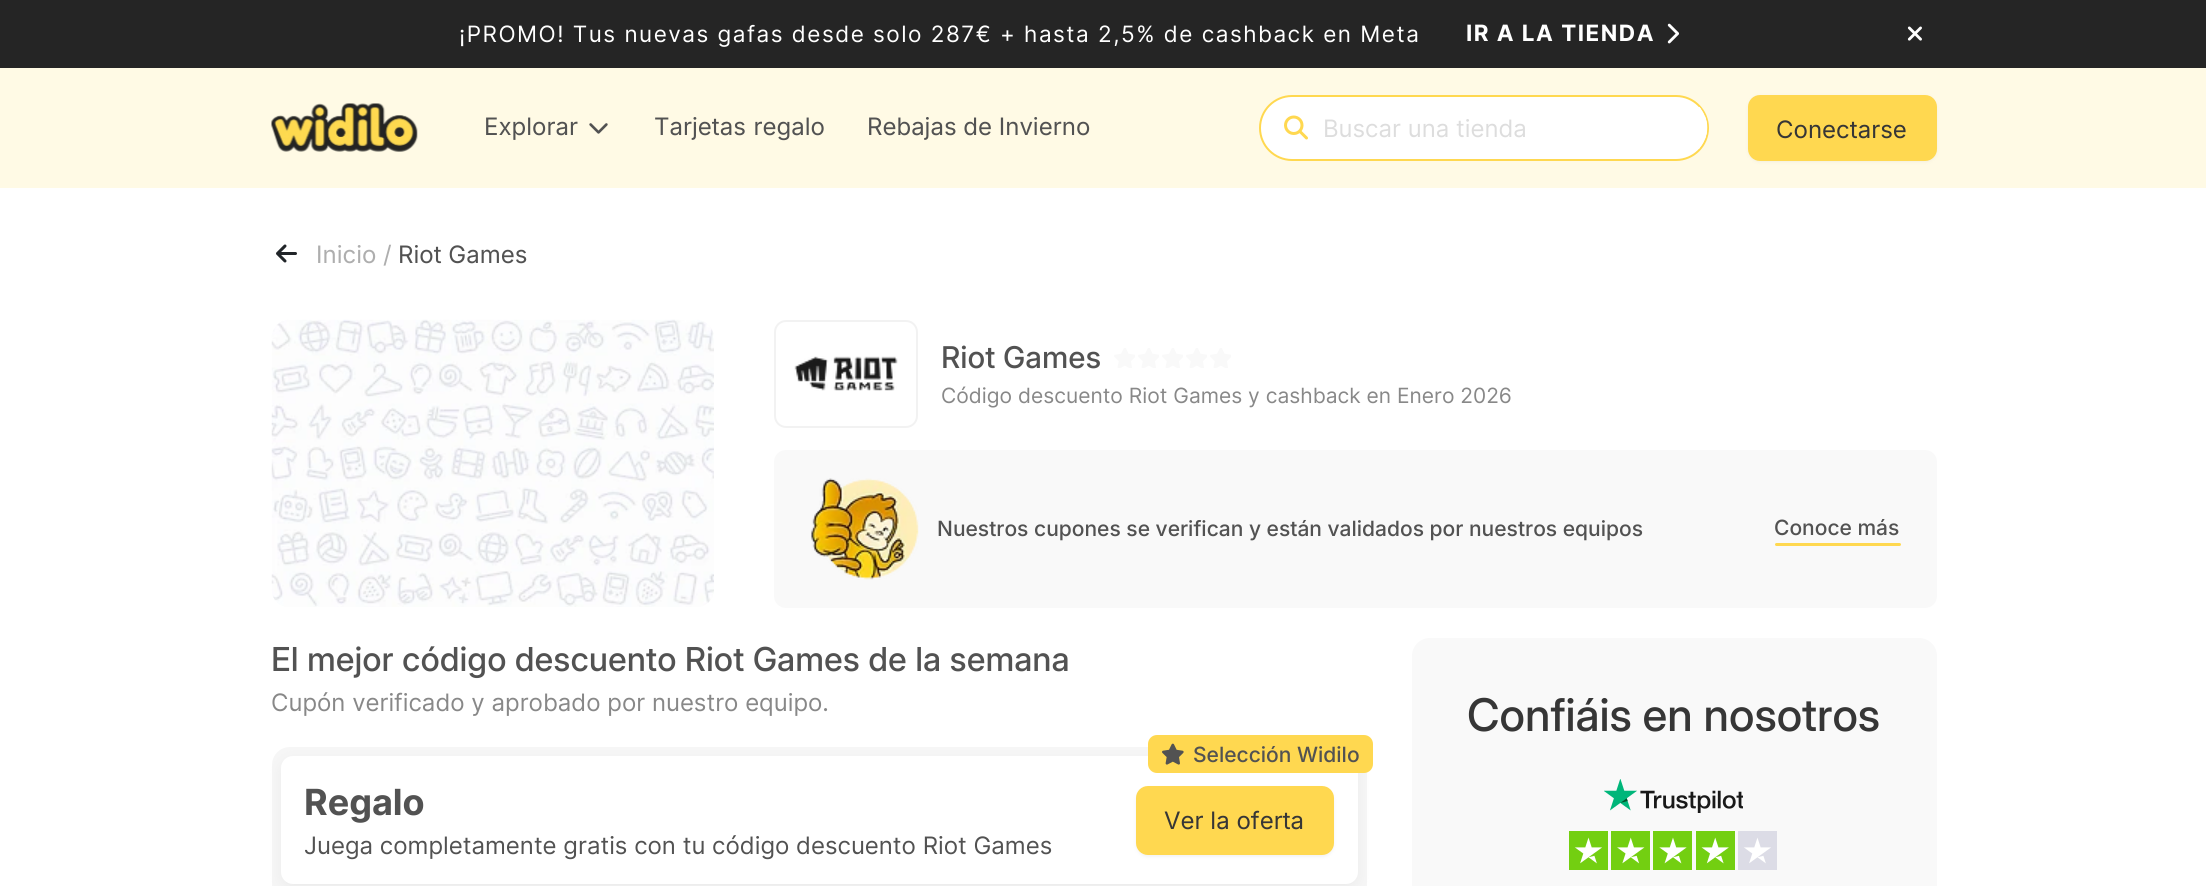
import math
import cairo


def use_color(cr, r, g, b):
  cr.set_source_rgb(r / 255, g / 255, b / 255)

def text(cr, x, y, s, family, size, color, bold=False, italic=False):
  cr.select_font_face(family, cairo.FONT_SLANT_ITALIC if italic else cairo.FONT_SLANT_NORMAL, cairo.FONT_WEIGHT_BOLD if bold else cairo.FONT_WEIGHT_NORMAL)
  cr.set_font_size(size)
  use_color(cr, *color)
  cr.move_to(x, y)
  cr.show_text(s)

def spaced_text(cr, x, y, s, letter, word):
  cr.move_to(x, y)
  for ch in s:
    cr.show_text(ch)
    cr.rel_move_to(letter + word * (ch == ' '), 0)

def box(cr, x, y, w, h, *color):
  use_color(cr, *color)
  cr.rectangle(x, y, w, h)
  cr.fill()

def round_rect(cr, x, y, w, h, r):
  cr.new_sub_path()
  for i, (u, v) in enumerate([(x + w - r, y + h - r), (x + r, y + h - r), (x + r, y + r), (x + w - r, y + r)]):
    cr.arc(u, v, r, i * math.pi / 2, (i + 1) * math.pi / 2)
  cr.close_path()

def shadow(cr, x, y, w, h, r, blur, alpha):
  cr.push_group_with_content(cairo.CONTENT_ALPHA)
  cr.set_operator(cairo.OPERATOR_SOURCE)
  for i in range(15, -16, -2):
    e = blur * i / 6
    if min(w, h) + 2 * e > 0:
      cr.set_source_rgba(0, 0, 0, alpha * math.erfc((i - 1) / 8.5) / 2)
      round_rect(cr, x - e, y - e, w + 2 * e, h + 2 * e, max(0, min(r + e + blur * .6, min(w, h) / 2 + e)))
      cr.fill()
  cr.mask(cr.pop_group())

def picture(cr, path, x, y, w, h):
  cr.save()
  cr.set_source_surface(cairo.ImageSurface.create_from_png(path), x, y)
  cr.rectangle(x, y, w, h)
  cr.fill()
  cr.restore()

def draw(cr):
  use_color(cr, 255, 255, 255)
  cr.paint()
  box(cr, 0, 0, 2206, 68, 37, 37, 37)
  picture(cr, "img_01.png", 1667, 23, 12, 21)
  picture(cr, "img_02.png", 1907, 26, 15, 15)
  box(cr, 0, 68, 2206, 120, 255, 250, 229)
  picture(cr, "img_03.png", 271, 103, 147, 49)
  picture(cr, "img_04.png", 589, 123, 19, 11)
  use_color(cr, 255, 255, 255)
  round_rect(cr, 1260, 96, 448, 64, 32)
  cr.fill_preserve()
  use_color(cr, 255, 216, 80)
  cr.stroke()
  picture(cr, "img_05.png", 1284, 115, 24, 25)
  cr.save()
  round_rect(cr, 1260, 96, 447, 63, 31.5)
  cr.clip()
  box(cr, 1324, 107, 383, 42, 255, 255, 255)
  cr.restore()
  use_color(cr, 255, 255, 255)
  cr.set_fill_rule(cairo.FILL_RULE_EVEN_ODD)
  cr.new_path()
  cr.move_to(1322, 107)
  cr.line_to(1322, 149)
  cr.line_to(1699, 149)
  cr.line_to(1700, 147)
  cr.line_to(1324, 147)
  cr.line_to(1324, 109)
  cr.line_to(1701, 109)
  cr.line_to(1699, 107)
  cr.close_path()
  cr.move_to(1705, 116)
  cr.curve_to(1708, 124, 1708, 131, 1705, 139)
  cr.close_path()
  cr.fill()
  use_color(cr, 189, 189, 189)
  shadow(cr, 1748, 96, 189, 66, 12, 1.5, 0.18)
  use_color(cr, 255, 216, 80)
  round_rect(cr, 1749, 96, 187, 64, 11)
  cr.fill_preserve()
  cr.stroke()
  picture(cr, "img_06.png", 276, 244, 21, 19)
  picture(cr, "img_07.png", 271, 319, 443, 288)
  round_rect(cr, 775, 321, 142, 106, 11)
  use_color(cr, 242, 242, 242)
  cr.stroke()
  picture(cr, "img_08.png", 794, 356, 104, 35)
  picture(cr, "img_09.png", 1114, 348, 21, 20)
  picture(cr, "img_09.png", 1138, 348, 21, 20)
  picture(cr, "img_09.png", 1162, 348, 21, 20)
  picture(cr, "img_09.png", 1186, 348, 21, 20)
  picture(cr, "img_09.png", 1210, 348, 21, 20)
  use_color(cr, 249, 249, 249)
  round_rect(cr, 774, 450, 1163, 158, 12)
  cr.fill()
  picture(cr, "img_10.png", 811, 478, 108, 102)
  use_color(cr, 255, 216, 80)
  round_rect(cr, 1775, 543, 126, 3, 1.5)
  cr.fill()
  use_color(cr, 246, 246, 246)
  round_rect(cr, 272, 747, 1095, 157, 18)
  cr.fill()
  use_color(cr, 189, 189, 189)
  shadow(cr, 281, 761, 1077, 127, 12, 6, 0.2)
  use_color(cr, 255, 255, 255)
  round_rect(cr, 281, 756, 1077, 128, 12)
  cr.fill()
  use_color(cr, 255, 216, 80)
  round_rect(cr, 1148, 735, 225, 38, 9)
  cr.fill()
  picture(cr, "img_11.png", 1162, 743, 22, 22)
  use_color(cr, 189, 189, 189)
  shadow(cr, 1136, 788, 198, 69, 12, 1.5, 0.18)
  use_color(cr, 255, 216, 80)
  round_rect(cr, 1137, 787, 196, 67, 11)
  cr.fill_preserve()
  cr.stroke()
  use_color(cr, 249, 249, 249)
  round_rect(cr, 1412, 638, 525, 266, 18)
  cr.fill()
  picture(cr, "img_12.png", 1604, 779, 139, 34)
  picture(cr, "img_13.png", 1569, 831, 208, 39)
  cr.select_font_face("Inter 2")
  cr.set_font_size(22.5)
  use_color(cr, 255, 255, 255)
  spaced_text(cr, 459, 42, "¡PROMO! Tus nuevas gafas desde solo 287€ + hasta 2,5% de cashback en Meta", 1.5, 0)
  cr.select_font_face("Inter", cairo.FONT_SLANT_NORMAL, cairo.FONT_WEIGHT_BOLD)
  spaced_text(cr, 1466, 41, "IR A LA TIENDA", 1.5, 0)
  text(cr, 484, 135, "Explorar", "Inter", 24, (82, 82, 82))
  spaced_text(cr, 654, 135, "Tarjetas regalo", 0, 1)
  text(cr, 867, 135, "Rebajas de Invierno", "Inter", 24, (82, 82, 82))
  text(cr, 1323, 137, "Buscar una tienda", "Inter 2", 24, (221, 221, 221))
  text(cr, 1776, 138, "Conectarse", "Inter", 24, (54, 54, 54))
  text(cr, 316, 263, "Inicio /", "Inter", 24, (174, 174, 174))
  text(cr, 398, 263, "Riot Games", "Inter", 24, (82, 82, 82))
  text(cr, 941, 368, "Riot Games", "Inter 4 Medium", 30, (82, 82, 82))
  text(cr, 941, 403, "Código descuento Riot Games y cashback en Enero 2026", "Inter 2", 21, (136, 136, 136))
  text(cr, 937, 536, "Nuestros cupones se verifican y están validados por nuestros equipos", "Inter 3 Medium", 21, (82, 82, 82))
  text(cr, 1774, 535, "Conoce más", "Inter 3 Medium", 21, (82, 82, 82))
  text(cr, 271, 671, "El mejor código descuento Riot Games de la semana", "Inter Medium", 33, (82, 82, 82))
  text(cr, 271, 711, "Cupón verificado y aprobado por nuestro equipo.", "Inter 2", 24, (136, 136, 136))
  text(cr, 1193, 762, "Selección Widilo", "Inter 3 Medium", 21, (82, 82, 82))
  text(cr, 304, 815, "Regalo", "Inter", 36, (82, 82, 82), bold=True)
  text(cr, 304, 854, "Juega completamente gratis con tu código descuento Riot Games", "Inter 2", 24, (82, 82, 82))
  text(cr, 1164, 829, "Ver la oferta", "Inter", 24, (54, 54, 54))
  text(cr, 1467, 731, "Confiáis en nosotros", "Inter 2 Medium", 45, (54, 54, 54))


surface = cairo.ImageSurface(cairo.FORMAT_RGB24, 2206, 886)
cr = cairo.Context(surface)
options = cairo.FontOptions()
options.set_hint_metrics(cairo.HINT_METRICS_OFF)
options.set_hint_style(cairo.HINT_STYLE_NONE)
cr.set_font_options(options)
cr.set_miter_limit(4)
draw(cr)
surface.write_to_png("out.png")
